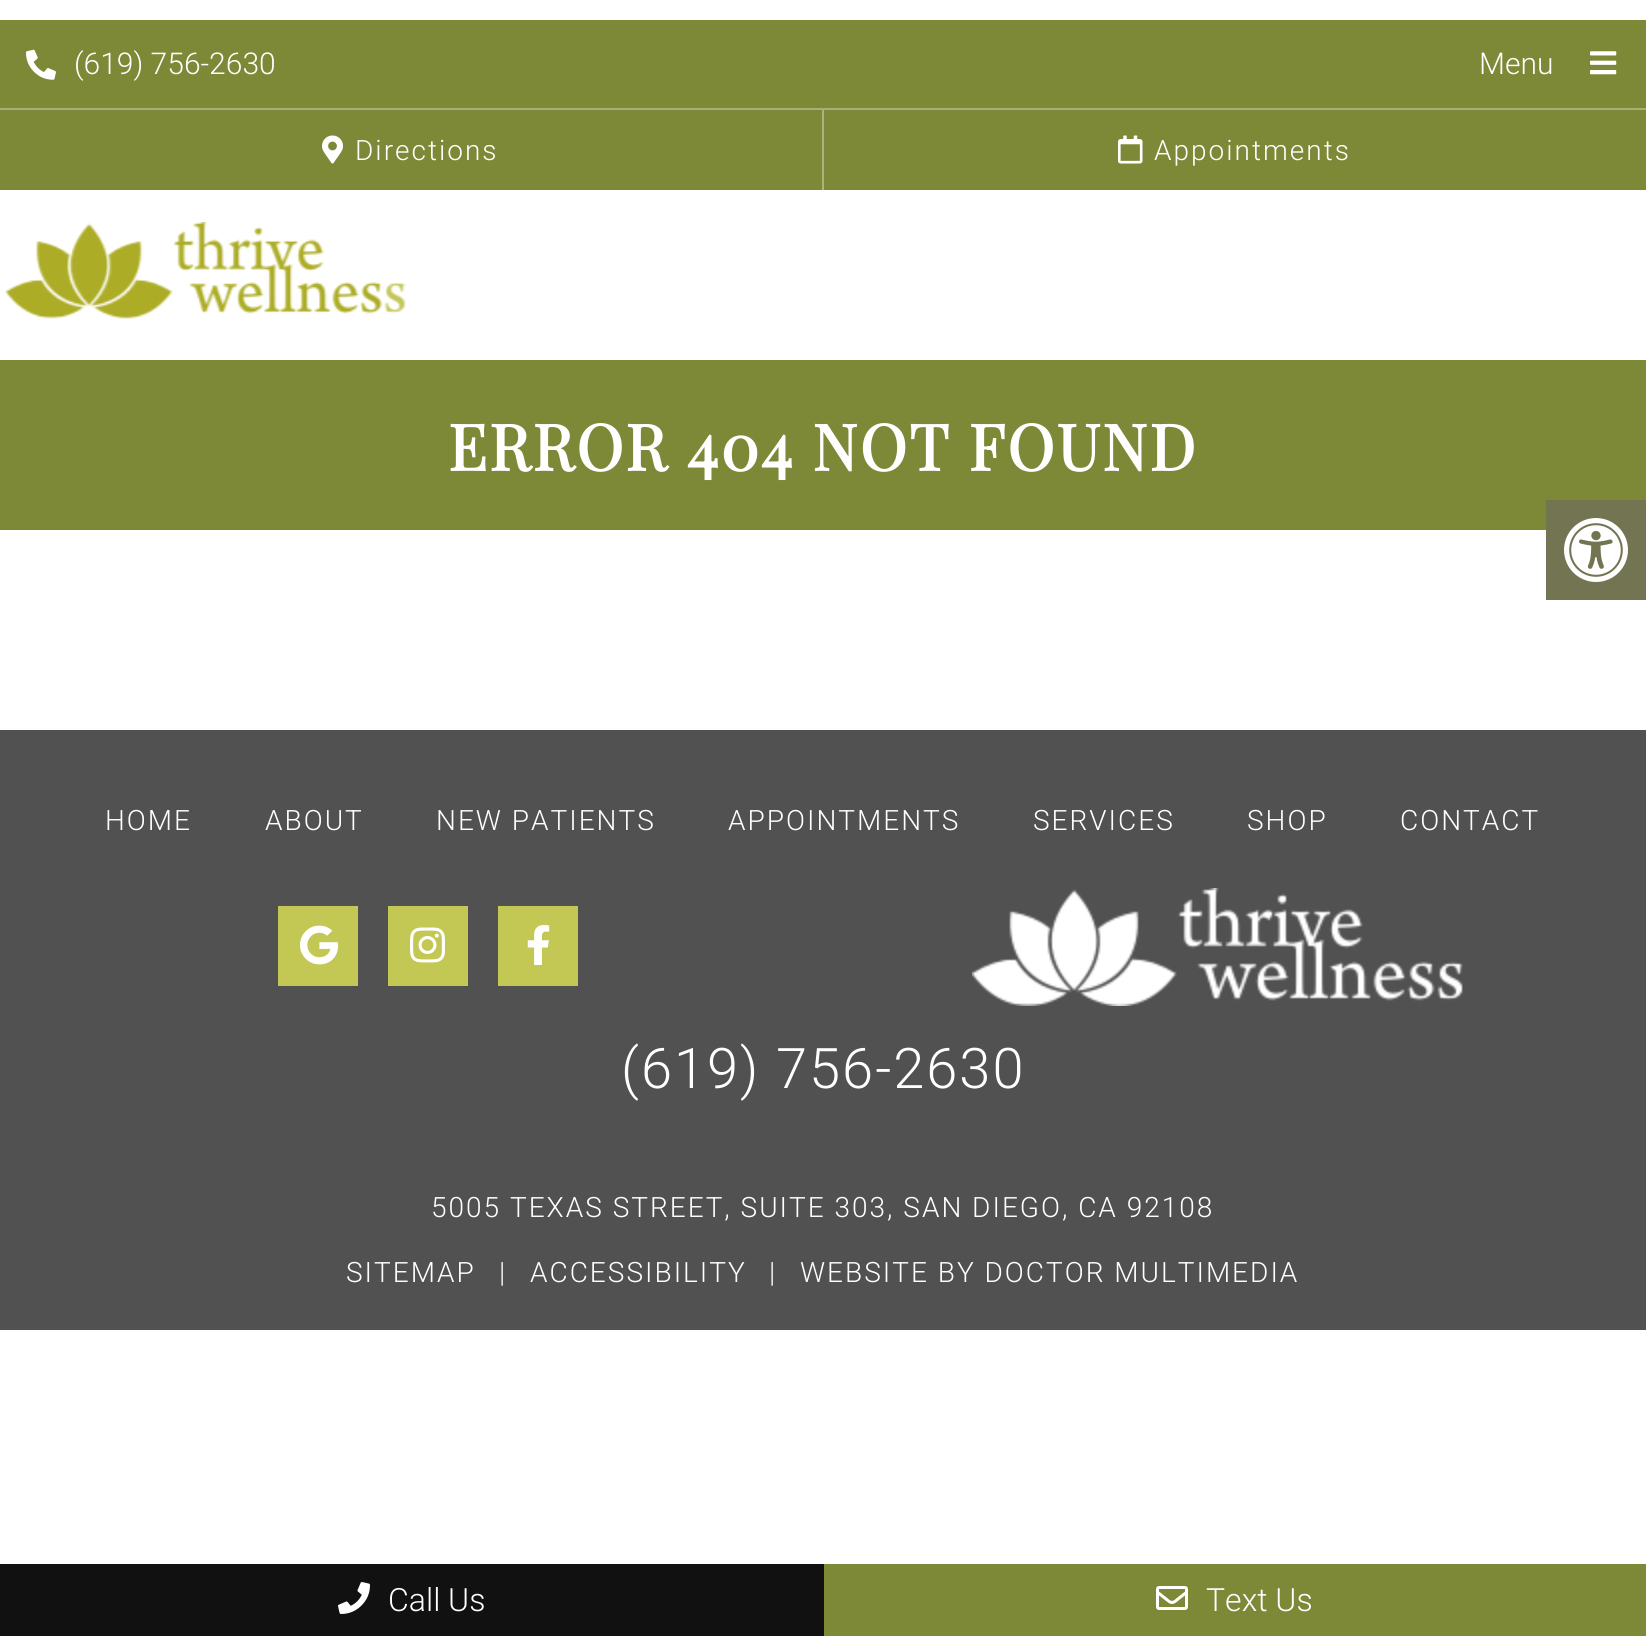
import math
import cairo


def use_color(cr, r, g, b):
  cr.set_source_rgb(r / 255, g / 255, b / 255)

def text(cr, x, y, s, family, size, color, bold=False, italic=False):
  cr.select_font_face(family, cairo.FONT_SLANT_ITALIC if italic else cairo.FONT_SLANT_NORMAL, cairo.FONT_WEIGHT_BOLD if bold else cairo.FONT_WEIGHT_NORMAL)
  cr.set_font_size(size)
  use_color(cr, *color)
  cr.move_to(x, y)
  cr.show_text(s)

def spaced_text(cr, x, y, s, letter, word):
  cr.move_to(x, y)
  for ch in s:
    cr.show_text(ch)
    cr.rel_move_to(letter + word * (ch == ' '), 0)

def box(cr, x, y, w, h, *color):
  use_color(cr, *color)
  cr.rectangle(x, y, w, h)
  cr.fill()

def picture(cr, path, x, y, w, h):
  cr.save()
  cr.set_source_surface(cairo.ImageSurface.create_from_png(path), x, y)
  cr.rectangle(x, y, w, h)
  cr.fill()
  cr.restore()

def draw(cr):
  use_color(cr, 255, 255, 255)
  cr.paint()
  box(cr, 0, 20, 1646, 170, 125, 137, 55)
  picture(cr, "img_01.png", 26, 49, 30, 31)
  picture(cr, "img_02.png", 1590, 51, 27, 24)
  box(cr, 0, 108, 1646, 2, 167, 175, 119)
  box(cr, 822, 110, 2, 80, 172, 179, 127)
  picture(cr, "img_03.png", 322, 135, 21, 29)
  picture(cr, "img_04.png", 1118, 135, 25, 29)
  picture(cr, "img_05.png", 5, 222, 401, 97)
  box(cr, 0, 360, 1646, 170, 125, 137, 55)
  box(cr, 0, 730, 1646, 600, 81, 81, 81)
  box(cr, 278, 906, 80, 80, 195, 199, 83)
  picture(cr, "img_06.png", 300, 925, 39, 40)
  box(cr, 388, 906, 80, 80, 195, 199, 83)
  picture(cr, "img_07.png", 410, 927, 35, 36)
  box(cr, 498, 906, 80, 80, 195, 199, 83)
  picture(cr, "img_08.png", 527, 925, 23, 40)
  picture(cr, "img_09.png", 972, 888, 491, 118)
  box(cr, 1546, 500, 100, 100, 115, 116, 82)
  picture(cr, "img_10.png", 1564, 518, 64, 64)
  box(cr, 0, 1564, 824, 72, 17, 17, 17)
  picture(cr, "img_11.png", 338, 1582, 32, 32)
  box(cr, 824, 1564, 822, 72, 125, 137, 55)
  picture(cr, "img_12.png", 1156, 1586, 32, 24)
  text(cr, 74, 74, "(619) 756-2630", "Roboto Light", 30, (255, 255, 255))
  text(cr, 1479, 74, "Menu", "Roboto Light", 30, (255, 255, 255))
  cr.set_font_size(28)
  spaced_text(cr, 355, 160, "Directions", 2, 0)
  spaced_text(cr, 1154, 160, "Appointments", 2, 0)
  cr.select_font_face("Playfair Display", cairo.FONT_SLANT_NORMAL, cairo.FONT_WEIGHT_BOLD)
  cr.set_font_size(64)
  spaced_text(cr, 448, 471, "ERROR 404 NOT FOUND", 2, 0)
  cr.select_font_face("Roboto Light")
  cr.set_font_size(28)
  spaced_text(cr, 105, 830, "HOME", 2, 0)
  spaced_text(cr, 265, 830, "ABOUT", 2, 0)
  spaced_text(cr, 436, 830, "NEW PATIENTS", 2, 0)
  spaced_text(cr, 728, 830, "APPOINTMENTS", 2, 0)
  spaced_text(cr, 1033, 830, "SERVICES", 2, 0)
  spaced_text(cr, 1247, 830, "SHOP", 2, 0)
  spaced_text(cr, 1400, 830, "CONTACT", 2, 0)
  cr.set_font_size(56)
  spaced_text(cr, 621, 1088, "(619) 756-2630", 2, 0)
  cr.set_font_size(28)
  spaced_text(cr, 431, 1217, "5005 TEXAS STREET, SUITE 303, SAN DIEGO, CA 92108", 2, 0)
  spaced_text(cr, 346, 1282, "SITEMAP", 2, 0)
  spaced_text(cr, 499, 1282, "|", 2, 0)
  spaced_text(cr, 530, 1282, "ACCESSIBILITY", 2, 0)
  spaced_text(cr, 769, 1282, "|", 2, 0)
  spaced_text(cr, 800, 1282, "WEBSITE BY DOCTOR MULTIMEDIA", 2, 0)
  text(cr, 388, 1611, "Call Us", "Roboto Light", 32, (255, 255, 255))
  text(cr, 1206, 1611, "Text Us", "Roboto Light", 32, (255, 255, 255))


surface = cairo.ImageSurface(cairo.FORMAT_RGB24, 1646, 1636)
cr = cairo.Context(surface)
options = cairo.FontOptions()
options.set_hint_metrics(cairo.HINT_METRICS_OFF)
options.set_hint_style(cairo.HINT_STYLE_NONE)
cr.set_font_options(options)
cr.set_miter_limit(4)
draw(cr)
surface.write_to_png("out.png")
